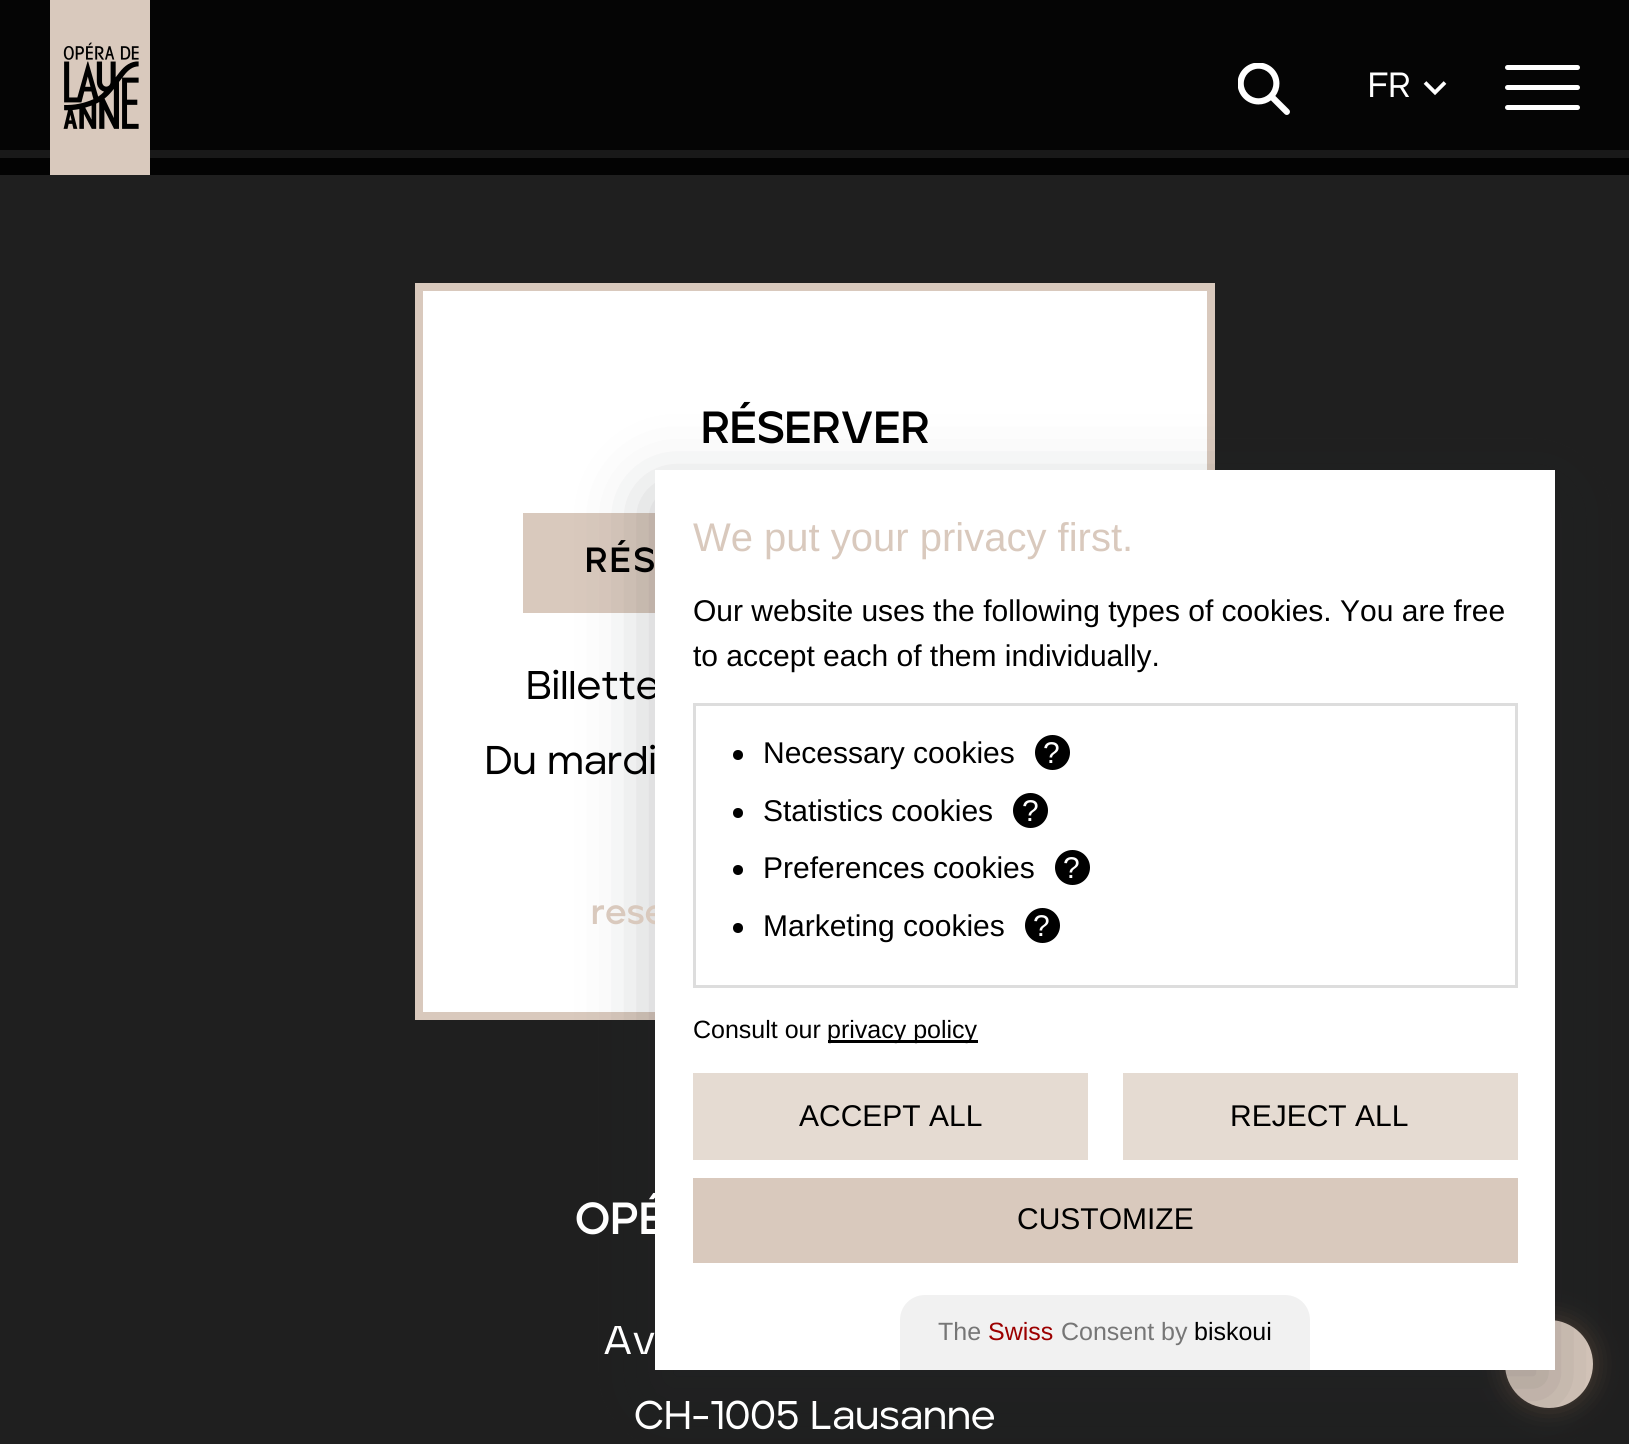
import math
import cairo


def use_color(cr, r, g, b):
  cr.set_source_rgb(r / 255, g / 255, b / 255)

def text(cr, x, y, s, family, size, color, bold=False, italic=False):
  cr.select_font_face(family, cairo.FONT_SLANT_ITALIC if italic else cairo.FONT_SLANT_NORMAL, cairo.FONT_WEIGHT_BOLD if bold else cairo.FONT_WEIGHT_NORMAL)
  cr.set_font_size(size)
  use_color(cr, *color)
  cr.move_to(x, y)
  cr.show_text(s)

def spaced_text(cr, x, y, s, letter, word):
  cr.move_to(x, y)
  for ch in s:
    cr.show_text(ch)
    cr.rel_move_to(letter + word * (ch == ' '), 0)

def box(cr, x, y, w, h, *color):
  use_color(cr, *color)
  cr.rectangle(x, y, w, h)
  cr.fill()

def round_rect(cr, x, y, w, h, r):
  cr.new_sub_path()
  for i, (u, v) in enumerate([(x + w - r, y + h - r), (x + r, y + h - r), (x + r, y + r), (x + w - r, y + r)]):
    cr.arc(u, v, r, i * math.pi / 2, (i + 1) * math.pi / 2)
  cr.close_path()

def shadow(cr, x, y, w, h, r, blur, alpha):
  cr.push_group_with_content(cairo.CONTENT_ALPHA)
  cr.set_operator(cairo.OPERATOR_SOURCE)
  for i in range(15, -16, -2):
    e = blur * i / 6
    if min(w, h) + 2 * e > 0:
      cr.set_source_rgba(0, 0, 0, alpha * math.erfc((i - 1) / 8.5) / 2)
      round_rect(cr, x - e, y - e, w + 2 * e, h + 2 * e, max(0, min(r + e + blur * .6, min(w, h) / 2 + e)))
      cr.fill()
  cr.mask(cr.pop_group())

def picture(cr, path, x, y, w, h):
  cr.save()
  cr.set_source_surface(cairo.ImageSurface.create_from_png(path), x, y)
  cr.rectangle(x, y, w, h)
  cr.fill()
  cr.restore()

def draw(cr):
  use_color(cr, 25, 25, 25)
  cr.paint()
  box(cr, 0, 0, 1629, 150, 5, 5, 5)
  box(cr, 0, 158, 1629, 17, 3, 3, 3)
  box(cr, 50, 0, 100, 175, 217, 201, 189)
  picture(cr, "img_01.png", 63, 42, 76, 87)
  picture(cr, "img_02.png", 1238, 63, 52, 52)
  cr.new_path()
  cr.move_to(1425, 82.5)
  cr.line_to(1435, 92.5)
  cr.line_to(1445, 82.5)
  use_color(cr, 255, 255, 255)
  cr.set_line_width(3.8)
  cr.stroke()
  round_rect(cr, 1505, 65, 75, 5, 2.5)
  cr.fill()
  round_rect(cr, 1505, 85, 75, 5, 2.5)
  cr.fill()
  round_rect(cr, 1505, 105, 75, 5, 2.5)
  cr.fill()
  box(cr, 0, 175, 1629, 1269, 31, 31, 31)
  use_color(cr, 255, 255, 255)
  cr.rectangle(419, 287, 792, 729)
  cr.fill_preserve()
  use_color(cr, 217, 201, 189)
  cr.set_line_width(8)
  cr.stroke()
  box(cr, 523, 513, 132, 100, 217, 201, 189)
  use_color(cr, 128, 97, 74)
  shadow(cr, 1505, 1320, 88, 88, 44, 12.5, 0.5)
  use_color(cr, 217, 201, 189)
  cr.arc(1549, 1364, 44, 0, 2 * math.pi)
  cr.fill()
  use_color(cr, 33, 37, 41)
  shadow(cr, 655, 495, 900, 900, 0, 37.5, 0.28)
  text(cr, 1368, 97, "FR", "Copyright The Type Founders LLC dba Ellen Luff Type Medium", 35, (255, 255, 255))
  text(cr, 701, 443, "RÉSERVER", "Copyright The Type Founders LLC dba Ellen Luff Type", 45, (0, 0, 0), bold=True)
  cr.set_font_size(35)
  spaced_text(cr, 585, 572, "RÉS", 2.5, 0)
  text(cr, 526, 699, "Billette", "Copyright The Type Founders LLC dba Ellen Luff Type Medium", 40, (0, 0, 0))
  text(cr, 485, 774, "Du mardi", "Copyright The Type Founders LLC dba Ellen Luff Type Medium", 40, (0, 0, 0))
  text(cr, 591, 924, "rese", "Copyright The Type Founders LLC dba Ellen Luff Type", 35, (217, 201, 189), bold=True)
  text(cr, 575, 1234, "OPÉ", "Copyright The Type Founders LLC dba Ellen Luff Type", 45, (255, 255, 255), bold=True)
  text(cr, 603, 1354, "Av", "Copyright The Type Founders LLC dba Ellen Luff Type Medium", 40, (255, 255, 255))
  text(cr, 634, 1429, "CH-1005 Lausanne", "Copyright The Type Founders LLC dba Ellen Luff Type Medium", 40, (255, 255, 255))
  box(cr, 655, 470, 900, 900, 255, 255, 255)
  text(cr, 693, 551, "We put your privacy first.", "Liberation Sans", 40, (217, 201, 189))
  text(cr, 693, 621, "Our website uses the following types of cookies. You are free", "Liberation Sans", 30, (0, 0, 0))
  text(cr, 693, 666, "to accept each of them individually.", "Liberation Sans", 30, (0, 0, 0))
  cr.rectangle(694.5, 704.5, 822, 282)
  use_color(cr, 221, 221, 221)
  cr.set_line_width(3)
  cr.stroke()
  use_color(cr, 0, 0, 0)
  cr.arc(738, 755, 5, 0, 2 * math.pi)
  cr.fill()
  text(cr, 763, 763, "Necessary cookies", "Liberation Sans", 30, (0, 0, 0))
  cr.new_path()
  cr.arc(1052.5, 752.5, 17.5, 0, 2 * math.pi)
  cr.fill()
  text(cr, 1043, 763, "?", "Liberation Sans", 30, (255, 255, 255))
  use_color(cr, 0, 0, 0)
  cr.new_path()
  cr.arc(738, 813, 5, 0, 2 * math.pi)
  cr.fill()
  text(cr, 763, 821, "Statistics cookies", "Liberation Sans", 30, (0, 0, 0))
  cr.new_path()
  cr.arc(1030.5, 810.5, 17.5, 0, 2 * math.pi)
  cr.fill()
  text(cr, 1022, 821, "?", "Liberation Sans", 30, (255, 255, 255))
  use_color(cr, 0, 0, 0)
  cr.new_path()
  cr.arc(738, 870, 5, 0, 2 * math.pi)
  cr.fill()
  text(cr, 763, 878, "Preferences cookies", "Liberation Sans", 30, (0, 0, 0))
  cr.new_path()
  cr.arc(1072.5, 867.5, 17.5, 0, 2 * math.pi)
  cr.fill()
  text(cr, 1063, 878, "?", "Liberation Sans", 30, (255, 255, 255))
  use_color(cr, 0, 0, 0)
  cr.new_path()
  cr.arc(738, 928, 5, 0, 2 * math.pi)
  cr.fill()
  text(cr, 763, 936, "Marketing cookies", "Liberation Sans", 30, (0, 0, 0))
  cr.new_path()
  cr.arc(1042.5, 925.5, 17.5, 0, 2 * math.pi)
  cr.fill()
  text(cr, 1033, 936, "?", "Liberation Sans", 30, (255, 255, 255))
  text(cr, 693, 1038, "Consult our", "Liberation Sans", 25, (0, 0, 0))
  box(cr, 828, 1040, 150, 3, 0, 0, 0)
  text(cr, 827, 1038, "privacy policy", "Liberation Sans", 25, (0, 0, 0))
  box(cr, 693, 1073, 395, 87, 229, 219, 210)
  text(cr, 799, 1126, "ACCEPT ALL", "Liberation Sans", 30, (0, 0, 0))
  box(cr, 1123, 1073, 395, 87, 229, 219, 210)
  text(cr, 1230, 1126, "REJECT ALL", "Liberation Sans", 30, (0, 0, 0))
  box(cr, 693, 1178, 825, 85, 217, 201, 189)
  text(cr, 1017, 1229, "CUSTOMIZE", "Liberation Sans", 30, (0, 0, 0))
  use_color(cr, 241, 241, 241)
  cr.new_path()
  cr.move_to(925, 1295)
  cr.line_to(1285, 1295)
  cr.curve_to(1299, 1295, 1310, 1306, 1310, 1320)
  cr.line_to(1310, 1370)
  cr.line_to(900, 1370)
  cr.line_to(900, 1320)
  cr.curve_to(900, 1306, 911, 1295, 925, 1295)
  cr.close_path()
  cr.fill()
  text(cr, 938, 1340, "The", "Liberation Sans", 25, (118, 118, 118))
  text(cr, 988, 1340, "Swiss", "Liberation Sans", 25, (156, 0, 0))
  text(cr, 1061, 1340, "Consent by", "Liberation Sans", 25, (118, 118, 118))
  text(cr, 1194, 1340, "biskoui", "Liberation Sans", 25, (0, 0, 0))


surface = cairo.ImageSurface(cairo.FORMAT_RGB24, 1629, 1444)
cr = cairo.Context(surface)
options = cairo.FontOptions()
options.set_hint_metrics(cairo.HINT_METRICS_OFF)
options.set_hint_style(cairo.HINT_STYLE_NONE)
cr.set_font_options(options)
cr.set_miter_limit(4)
draw(cr)
surface.write_to_png("out.png")
